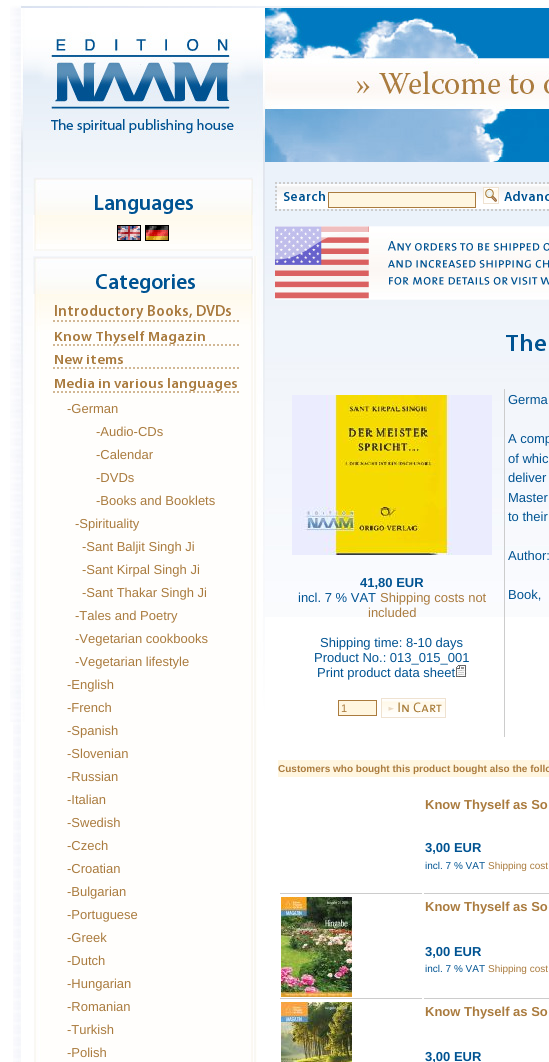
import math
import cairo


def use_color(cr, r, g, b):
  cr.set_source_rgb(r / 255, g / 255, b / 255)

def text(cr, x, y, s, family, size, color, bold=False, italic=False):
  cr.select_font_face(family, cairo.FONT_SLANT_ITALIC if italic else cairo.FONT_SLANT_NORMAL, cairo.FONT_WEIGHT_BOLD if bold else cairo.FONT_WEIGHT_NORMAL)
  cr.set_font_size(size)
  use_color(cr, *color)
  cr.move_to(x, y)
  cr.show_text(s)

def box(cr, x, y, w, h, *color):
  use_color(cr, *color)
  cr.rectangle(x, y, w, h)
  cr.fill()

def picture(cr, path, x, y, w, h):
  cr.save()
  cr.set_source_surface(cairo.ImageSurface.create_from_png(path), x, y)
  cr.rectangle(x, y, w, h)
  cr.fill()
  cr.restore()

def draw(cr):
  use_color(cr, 255, 255, 255)
  cr.paint()
  picture(cr, "img_01.png", 10, 5, 539, 157)
  picture(cr, "img_02.png", 13, 722, 8, 340)
  picture(cr, "img_03.png", 10, 162, 255, 560)
  picture(cr, "img_04.png", 33, 215, 220, 36)
  picture(cr, "img_05.png", 33, 177, 220, 38)
  picture(cr, "img_06.png", 95, 195, 98, 19)
  picture(cr, "img_07.png", 35, 215, 217, 29)
  picture(cr, "img_08.png", 117, 225, 24, 16)
  picture(cr, "img_09.png", 145, 225, 24, 16)
  picture(cr, "img_10.png", 36, 249, 217, 2)
  picture(cr, "img_11.png", 33, 256, 224, 806)
  picture(cr, "img_05.png", 33, 256, 220, 38)
  picture(cr, "img_12.png", 96, 274, 99, 19)
  picture(cr, "img_13.png", 35, 294, 217, 38)
  cr.new_path()
  cr.move_to(53, 321)
  cr.line_to(239, 321)
  use_color(cr, 210, 184, 149)
  cr.set_dash([2, 2])
  cr.stroke()
  picture(cr, "img_14.png", 55, 305, 176, 14)
  cr.new_path()
  cr.move_to(53, 345)
  cr.line_to(239, 345)
  cr.stroke()
  picture(cr, "img_15.png", 55, 331, 150, 13)
  cr.new_path()
  cr.move_to(53, 368)
  cr.line_to(239, 368)
  cr.stroke()
  picture(cr, "img_16.png", 55, 355, 68, 9)
  cr.new_path()
  cr.move_to(53, 392)
  cr.line_to(239, 392)
  cr.stroke()
  picture(cr, "img_17.png", 55, 378, 182, 13)
  picture(cr, "img_18.png", 265, 162, 284, 455)
  picture(cr, "img_19.png", 277, 184, 272, 25)
  cr.new_path()
  cr.move_to(275, 183)
  cr.line_to(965, 183)
  use_color(cr, 204, 204, 204)
  cr.stroke()
  cr.new_path()
  cr.move_to(275, 210)
  cr.line_to(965, 210)
  cr.stroke()
  cr.new_path()
  cr.move_to(276, 182)
  cr.line_to(276, 211)
  cr.stroke()
  picture(cr, "img_20.png", 284, 191, 41, 10)
  use_color(cr, 255, 246, 224)
  cr.rectangle(328.5, 192.5, 147, 15)
  cr.fill_preserve()
  use_color(cr, 170, 123, 62)
  cr.set_line_width(1)
  cr.set_dash([])
  cr.stroke()
  picture(cr, "img_21.png", 483, 187, 16, 17)
  picture(cr, "img_22.png", 504, 191, 45, 10)
  picture(cr, "img_23.png", 275, 226, 274, 74)
  picture(cr, "img_24.png", 506, 334, 40, 17)
  box(cr, 504, 389, 1, 348, 204, 204, 204)
  picture(cr, "img_25.png", 292, 395, 200, 160)
  picture(cr, "img_26.png", 455, 665, 12, 12)
  use_color(cr, 255, 246, 224)
  cr.rectangle(338.5, 700.5, 38, 15)
  cr.fill_preserve()
  use_color(cr, 170, 123, 62)
  cr.stroke()
  picture(cr, "img_27.png", 381, 698, 65, 20)
  box(cr, 278, 760, 271, 17, 255, 246, 224)
  box(cr, 280, 893, 142, 1, 204, 204, 204)
  box(cr, 424, 893, 125, 1, 204, 204, 204)
  box(cr, 280, 998, 142, 1, 204, 204, 204)
  picture(cr, "img_28.png", 281, 897, 71, 100)
  box(cr, 424, 998, 125, 1, 204, 204, 204)
  picture(cr, "img_29.png", 281, 1002, 71, 60)
  text(cr, 67, 413, "-German", "Liberation Sans", 13, (170, 123, 62))
  text(cr, 96, 436, "-Audio-CDs", "Liberation Sans", 13, (170, 123, 62))
  text(cr, 96, 459, "-Calendar", "Liberation Sans", 13, (170, 123, 62))
  text(cr, 96, 482, "-DVDs", "Liberation Sans", 13, (170, 123, 62))
  text(cr, 96, 505, "-Books and Booklets", "Liberation Sans", 13, (170, 123, 62))
  text(cr, 75, 528, "-Spirituality", "Liberation Sans", 13, (170, 123, 62))
  text(cr, 82, 551, "-Sant Baljit Singh Ji", "Liberation Sans", 13, (170, 123, 62))
  text(cr, 82, 574, "-Sant Kirpal Singh Ji", "Liberation Sans", 13, (170, 123, 62))
  text(cr, 82, 597, "-Sant Thakar Singh Ji", "Liberation Sans", 13, (170, 123, 62))
  text(cr, 75, 620, "-Tales and Poetry", "Liberation Sans", 13, (170, 123, 62))
  text(cr, 75, 643, "-Vegetarian cookbooks", "Liberation Sans", 13, (170, 123, 62))
  text(cr, 75, 666, "-Vegetarian lifestyle", "Liberation Sans", 13, (170, 123, 62))
  text(cr, 67, 689, "-English", "Liberation Sans", 13, (170, 123, 62))
  text(cr, 67, 712, "-French", "Liberation Sans", 13, (170, 123, 62))
  text(cr, 67, 735, "-Spanish", "Liberation Sans", 13, (170, 123, 62))
  text(cr, 67, 758, "-Slovenian", "Liberation Sans", 13, (170, 123, 62))
  text(cr, 67, 781, "-Russian", "Liberation Sans", 13, (170, 123, 62))
  text(cr, 67, 804, "-Italian", "Liberation Sans", 13, (170, 123, 62))
  text(cr, 67, 827, "-Swedish", "Liberation Sans", 13, (170, 123, 62))
  text(cr, 67, 850, "-Czech", "Liberation Sans", 13, (170, 123, 62))
  text(cr, 67, 873, "-Croatian", "Liberation Sans", 13, (170, 123, 62))
  text(cr, 67, 896, "-Bulgarian", "Liberation Sans", 13, (170, 123, 62))
  text(cr, 67, 919, "-Portuguese", "Liberation Sans", 13, (170, 123, 62))
  text(cr, 67, 942, "-Greek", "Liberation Sans", 13, (170, 123, 62))
  text(cr, 67, 965, "-Dutch", "Liberation Sans", 13, (170, 123, 62))
  text(cr, 67, 988, "-Hungarian", "Liberation Sans", 13, (170, 123, 62))
  text(cr, 67, 1011, "-Romanian", "Liberation Sans", 13, (170, 123, 62))
  text(cr, 67, 1034, "-Turkish", "Liberation Sans", 13, (170, 123, 62))
  text(cr, 67, 1057, "-Polish", "Liberation Sans", 13, (170, 123, 62))
  text(cr, 508, 404, "Germa", "Liberation Sans", 13, (0, 83, 146))
  text(cr, 508, 443, "A comp", "Liberation Sans", 13, (0, 83, 146))
  text(cr, 508, 463, "of whic", "Liberation Sans", 13, (0, 83, 146))
  text(cr, 508, 482, "deliver", "Liberation Sans", 13, (0, 83, 146))
  text(cr, 508, 502, "Master", "Liberation Sans", 13, (0, 83, 146))
  text(cr, 508, 521, "to their", "Liberation Sans", 13, (0, 83, 146))
  text(cr, 508, 560, "Author:", "Liberation Sans", 13, (0, 83, 146))
  text(cr, 508, 599, "Book,", "Liberation Sans", 13, (0, 83, 146))
  text(cr, 360, 587, "41,80 EUR", "Liberation Sans", 13, (0, 83, 146), bold=True)
  text(cr, 298, 602, "incl. 7 % VAT", "Liberation Sans", 13, (0, 83, 146))
  text(cr, 380, 602, "Shipping costs not", "Liberation Sans", 13, (170, 123, 62))
  text(cr, 368, 617, "included", "Liberation Sans", 13, (170, 123, 62))
  text(cr, 320, 647, "Shipping time: 8-10 days", "Liberation Sans", 13, (0, 83, 146))
  text(cr, 314, 662, "Product No.: 013_015_001", "Liberation Sans", 13, (0, 83, 146))
  text(cr, 317, 677, "Print product data sheet", "Liberation Sans", 13, (0, 83, 146))
  text(cr, 341, 712, "1", "Liberation Sans", 11, (170, 123, 62))
  text(cr, 278, 772, "Customers who bought this product bought also the follo", "Liberation Sans", 10, (170, 123, 62), bold=True)
  text(cr, 425, 809, "Know Thyself as So", "Liberation Sans", 13, (170, 123, 62), bold=True)
  text(cr, 425, 852, "3,00 EUR", "Liberation Sans", 13, (0, 83, 146), bold=True)
  text(cr, 425, 869, "incl. 7 % VAT", "Liberation Sans", 10, (0, 83, 146))
  text(cr, 488, 869, "Shipping cost", "Liberation Sans", 10, (170, 123, 62))
  text(cr, 425, 911, "Know Thyself as So", "Liberation Sans", 13, (170, 123, 62), bold=True)
  text(cr, 425, 956, "3,00 EUR", "Liberation Sans", 13, (0, 83, 146), bold=True)
  text(cr, 425, 972, "incl. 7 % VAT", "Liberation Sans", 10, (0, 83, 146))
  text(cr, 488, 972, "Shipping cost", "Liberation Sans", 10, (170, 123, 62))
  text(cr, 425, 1016, "Know Thyself as So", "Liberation Sans", 13, (170, 123, 62), bold=True)
  text(cr, 425, 1061, "3,00 EUR", "Liberation Sans", 13, (0, 83, 146), bold=True)


surface = cairo.ImageSurface(cairo.FORMAT_RGB24, 549, 1062)
cr = cairo.Context(surface)
options = cairo.FontOptions()
options.set_hint_metrics(cairo.HINT_METRICS_OFF)
options.set_hint_style(cairo.HINT_STYLE_NONE)
cr.set_font_options(options)
cr.set_miter_limit(4)
draw(cr)
surface.write_to_png("out.png")
